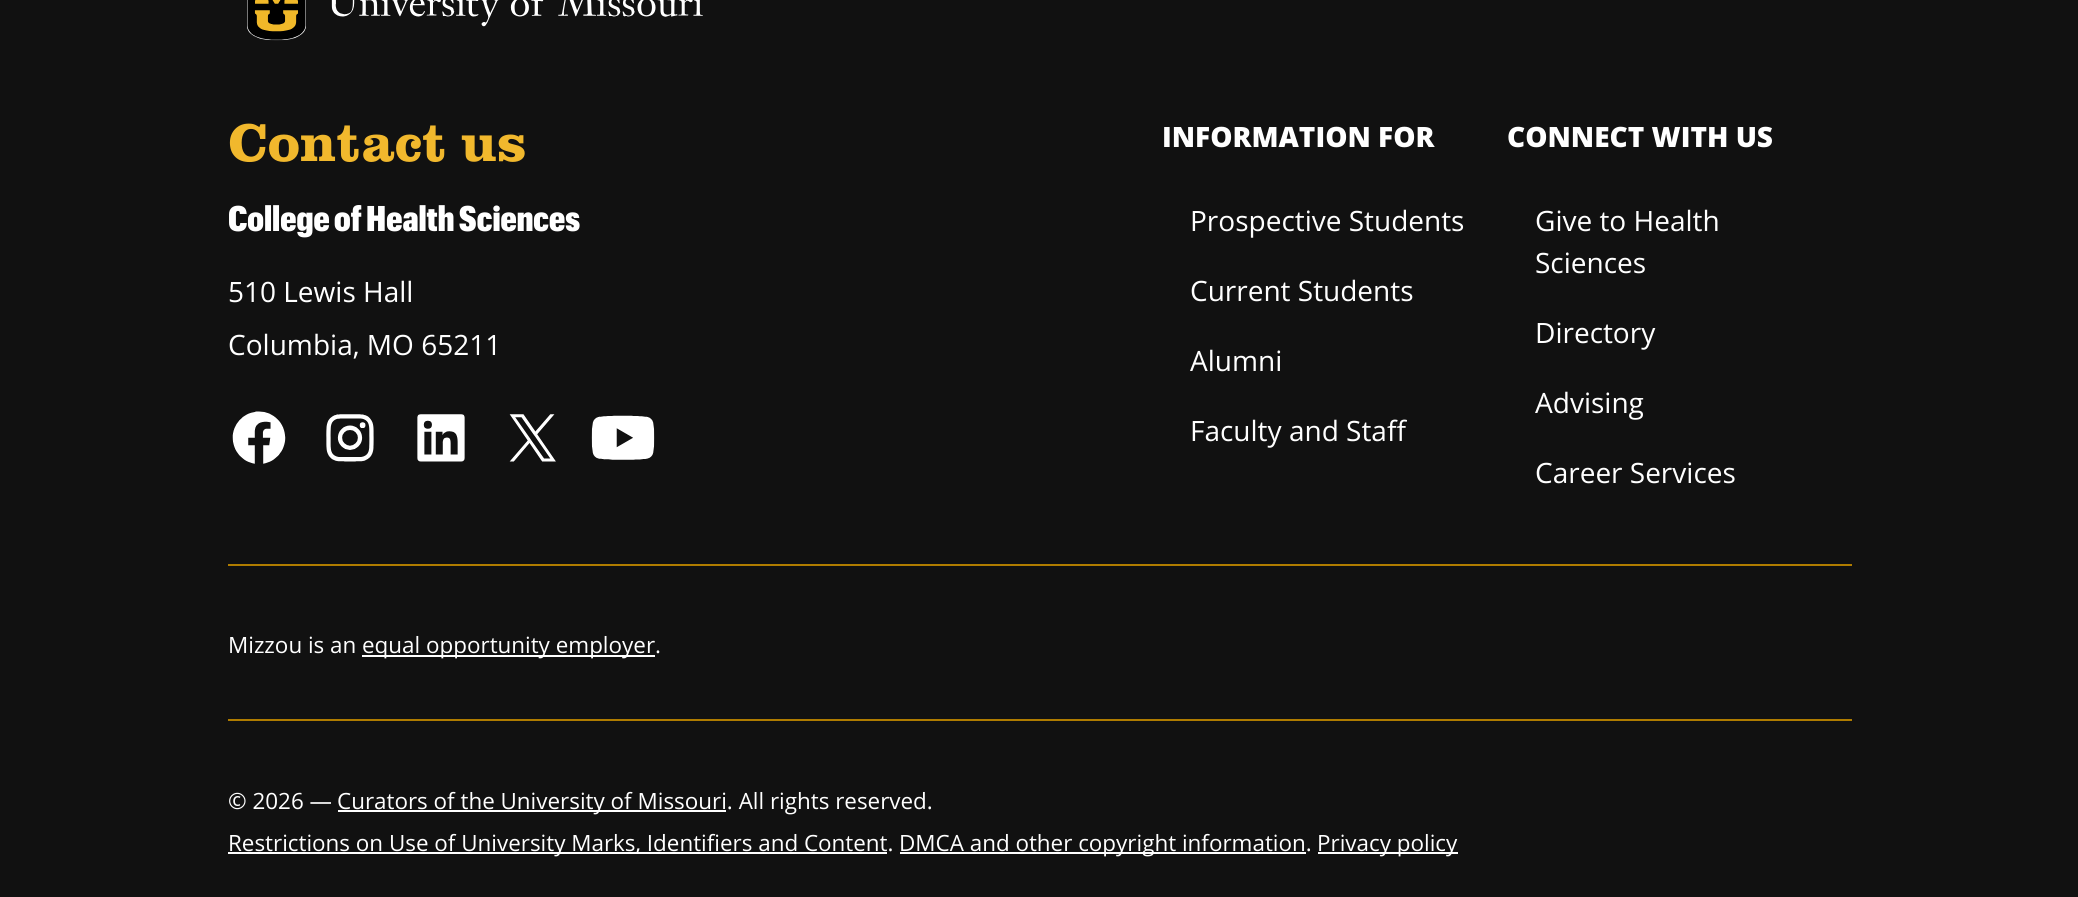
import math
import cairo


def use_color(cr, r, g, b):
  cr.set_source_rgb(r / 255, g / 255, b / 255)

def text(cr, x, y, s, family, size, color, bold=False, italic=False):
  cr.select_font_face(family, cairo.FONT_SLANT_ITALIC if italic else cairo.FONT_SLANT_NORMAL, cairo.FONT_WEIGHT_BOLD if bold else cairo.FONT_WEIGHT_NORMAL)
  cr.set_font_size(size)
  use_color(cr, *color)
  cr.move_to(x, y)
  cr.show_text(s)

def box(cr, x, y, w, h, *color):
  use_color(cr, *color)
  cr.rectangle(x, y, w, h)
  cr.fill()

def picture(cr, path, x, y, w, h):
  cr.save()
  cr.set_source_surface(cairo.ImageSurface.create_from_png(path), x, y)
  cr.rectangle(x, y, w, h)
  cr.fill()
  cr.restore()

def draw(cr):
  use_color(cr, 17, 17, 17)
  cr.paint()
  picture(cr, "img_01.png", 247, 0, 59, 41)
  picture(cr, "img_02.png", 331, 0, 372, 27)
  picture(cr, "img_03.png", 232, 411, 54, 53)
  picture(cr, "img_04.png", 326, 414, 48, 48)
  picture(cr, "img_05.png", 417, 414, 48, 48)
  picture(cr, "img_06.png", 509, 414, 47, 48)
  picture(cr, "img_07.png", 591, 415, 64, 45)
  box(cr, 228, 564, 1624, 2, 175, 124, 0)
  box(cr, 362, 655, 293, 2, 255, 255, 255)
  box(cr, 228, 719, 1624, 2, 175, 124, 0)
  box(cr, 338, 810, 388, 2, 255, 255, 255)
  box(cr, 228, 852, 659, 2, 255, 255, 255)
  box(cr, 900, 852, 406, 2, 255, 255, 255)
  box(cr, 1318, 852, 140, 2, 255, 255, 255)
  text(cr, 228, 161, "Contact us", "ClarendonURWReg", 54.5, (241, 184, 45))
  text(cr, 228, 231, "College of Health Sciences", "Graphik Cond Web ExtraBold", 35, (255, 255, 255))
  text(cr, 228, 302, "510 Lewis Hall", "Open Sans", 28, (255, 255, 255))
  text(cr, 228, 355, "Columbia, MO 65211", "Open Sans", 28, (255, 255, 255))
  text(cr, 1162, 147, "INFORMATION FOR", "Open Sans ExtraBold", 28, (255, 255, 255))
  text(cr, 1190, 231, "Prospective Students", "Open Sans", 28, (255, 255, 255))
  text(cr, 1190, 301, "Current Students", "Open Sans", 28, (255, 255, 255))
  text(cr, 1190, 371, "Alumni", "Open Sans", 28, (255, 255, 255))
  text(cr, 1190, 441, "Faculty and Staff", "Open Sans", 28, (255, 255, 255))
  text(cr, 1507, 147, "CONNECT WITH US", "Open Sans ExtraBold", 28, (255, 255, 255))
  text(cr, 1535, 231, "Give to Health", "Open Sans", 28, (255, 255, 255))
  text(cr, 1535, 273, "Sciences", "Open Sans", 28, (255, 255, 255))
  text(cr, 1535, 343, "Directory", "Open Sans", 28, (255, 255, 255))
  text(cr, 1535, 413, "Advising", "Open Sans", 28, (255, 255, 255))
  text(cr, 1535, 483, "Career Services", "Open Sans", 28, (255, 255, 255))
  text(cr, 228, 653, "Mizzou is an", "Open Sans", 22.4, (255, 255, 255))
  text(cr, 362, 653, "equal opportunity employer.", "Open Sans", 22.4, (255, 255, 255))
  text(cr, 228, 809, "© 2026 —", "Open Sans", 22.4, (255, 255, 255))
  text(cr, 337, 809, "Curators of the University of Missouri. All rights reserved.", "Open Sans", 22.4, (255, 255, 255))
  text(cr, 228, 851, "Restrictions on Use of University Marks, Identifiers and Content.", "Open Sans", 22.4, (255, 255, 255))
  text(cr, 899, 851, "DMCA and other copyright information.", "Open Sans", 22.4, (255, 255, 255))
  text(cr, 1317, 851, "Privacy policy", "Open Sans", 22.4, (255, 255, 255))


surface = cairo.ImageSurface(cairo.FORMAT_RGB24, 2078, 897)
cr = cairo.Context(surface)
options = cairo.FontOptions()
options.set_hint_metrics(cairo.HINT_METRICS_OFF)
options.set_hint_style(cairo.HINT_STYLE_NONE)
cr.set_font_options(options)
cr.set_miter_limit(4)
draw(cr)
surface.write_to_png("out.png")
